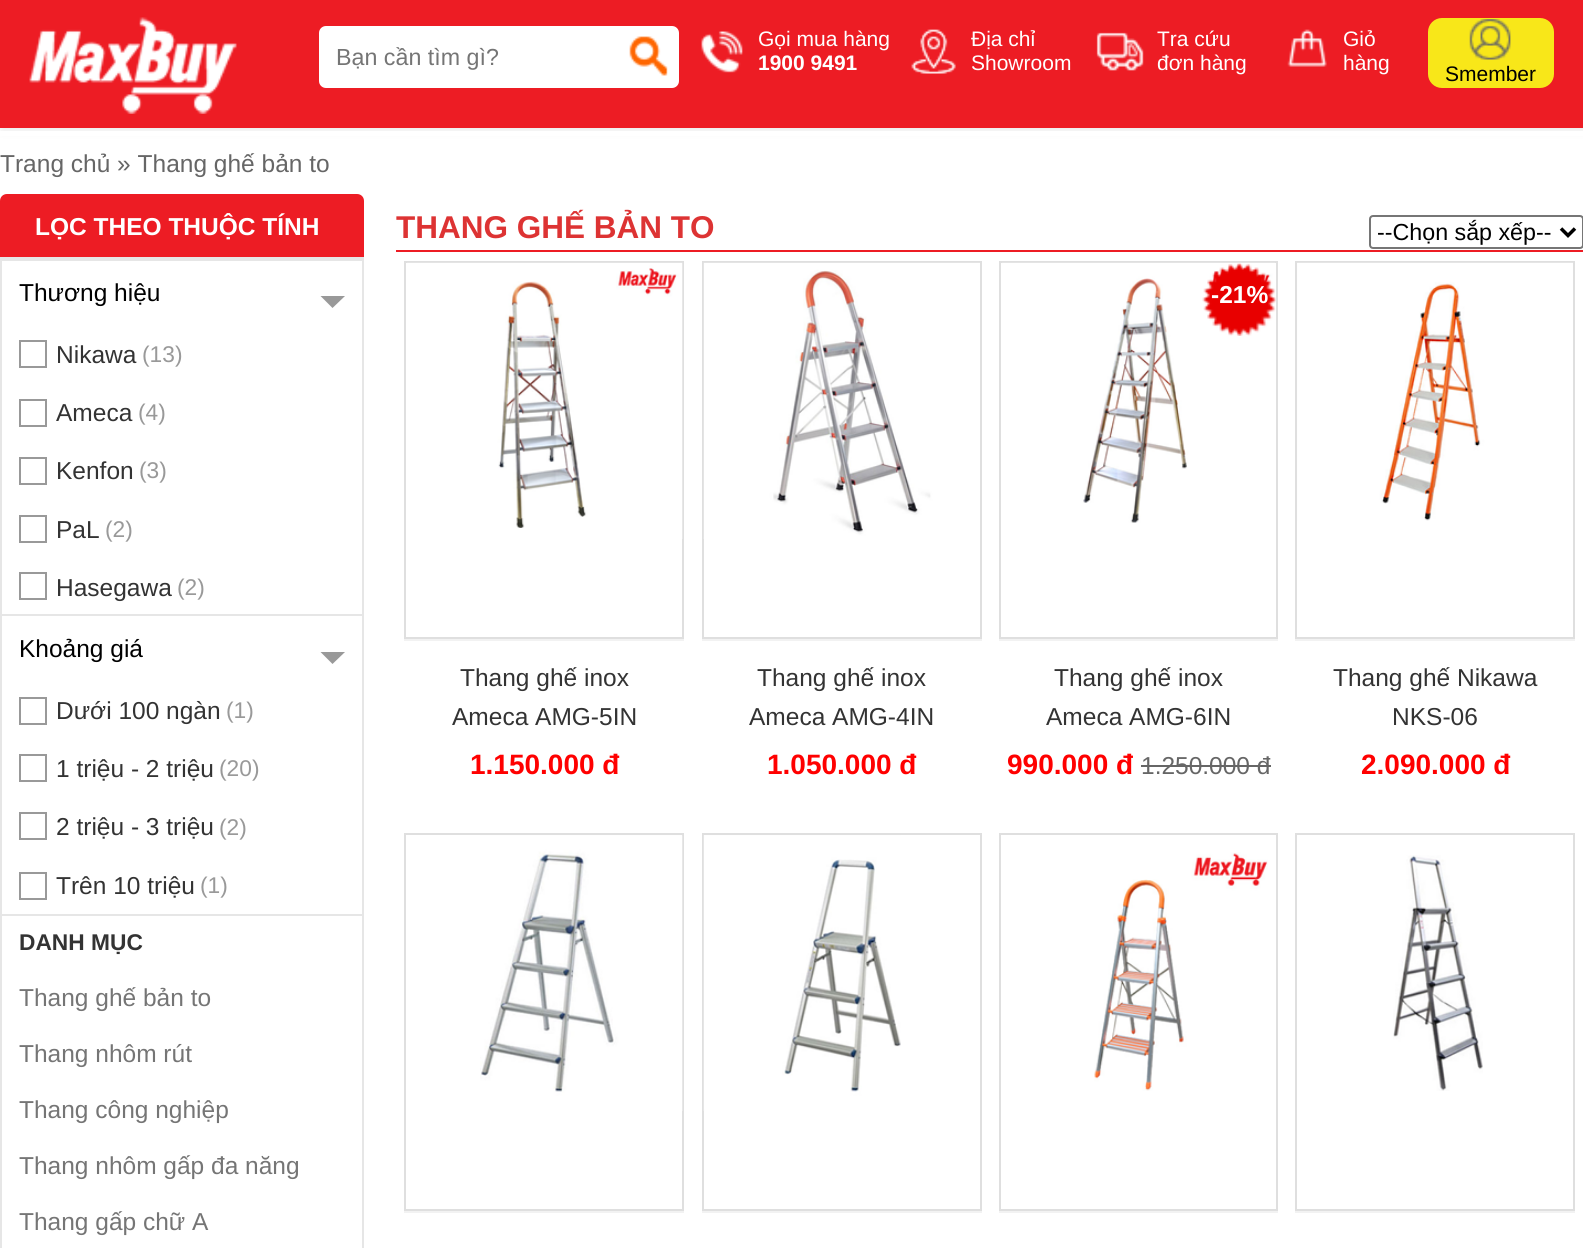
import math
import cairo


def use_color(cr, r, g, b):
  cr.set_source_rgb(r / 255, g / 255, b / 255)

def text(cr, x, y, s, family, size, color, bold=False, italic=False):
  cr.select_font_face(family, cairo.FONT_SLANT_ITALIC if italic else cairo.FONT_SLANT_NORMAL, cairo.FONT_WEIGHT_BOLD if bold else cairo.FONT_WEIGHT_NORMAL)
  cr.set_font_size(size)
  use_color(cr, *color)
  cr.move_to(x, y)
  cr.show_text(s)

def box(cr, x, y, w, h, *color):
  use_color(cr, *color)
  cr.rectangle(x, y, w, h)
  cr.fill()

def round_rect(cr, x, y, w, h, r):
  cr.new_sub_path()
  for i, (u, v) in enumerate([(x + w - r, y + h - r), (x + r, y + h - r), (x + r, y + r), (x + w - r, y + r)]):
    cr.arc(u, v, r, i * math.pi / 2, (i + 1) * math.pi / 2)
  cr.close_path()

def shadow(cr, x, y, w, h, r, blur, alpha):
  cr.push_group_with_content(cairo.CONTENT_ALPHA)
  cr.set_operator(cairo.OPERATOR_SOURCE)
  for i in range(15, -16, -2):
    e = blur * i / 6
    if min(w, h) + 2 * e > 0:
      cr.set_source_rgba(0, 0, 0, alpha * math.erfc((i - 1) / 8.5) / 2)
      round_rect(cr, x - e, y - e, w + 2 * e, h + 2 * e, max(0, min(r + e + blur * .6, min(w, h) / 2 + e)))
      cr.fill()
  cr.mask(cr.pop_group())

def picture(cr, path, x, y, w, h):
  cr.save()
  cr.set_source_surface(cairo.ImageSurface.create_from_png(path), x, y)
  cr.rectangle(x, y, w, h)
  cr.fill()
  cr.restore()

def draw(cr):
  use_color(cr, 255, 255, 255)
  cr.paint()
  use_color(cr, 231, 231, 231)
  shadow(cr, 2, 2, 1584, 128, 0, 4.5, 1)
  box(cr, 0, 0, 1583, 128, 237, 28, 36)
  picture(cr, "img_01.png", 29, 17, 208, 97)
  use_color(cr, 255, 255, 255)
  round_rect(cr, 319, 26, 360, 62, 7)
  cr.fill()
  picture(cr, "img_02.png", 629, 36, 39, 40)
  picture(cr, "img_03.png", 701, 31, 42, 42)
  picture(cr, "img_04.png", 911, 29, 45, 45)
  picture(cr, "img_05.png", 1096, 32, 48, 39)
  picture(cr, "img_06.png", 1287, 29, 40, 38)
  use_color(cr, 248, 231, 25)
  round_rect(cr, 1428, 18, 126, 70, 14)
  cr.fill()
  picture(cr, "img_07.png", 1469, 19, 42, 41)
  box(cr, 0, 131, 1583, 5, 255, 255, 255)
  use_color(cr, 237, 28, 36)
  cr.new_path()
  cr.move_to(7, 194)
  cr.line_to(357, 194)
  cr.curve_to(361, 194, 364, 197, 364, 201)
  cr.line_to(364, 257)
  cr.line_to(0, 257)
  cr.line_to(0, 201)
  cr.curve_to(0, 197, 3, 194, 7, 194)
  cr.close_path()
  cr.fill()
  cr.rectangle(1, 258, 362, 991)
  use_color(cr, 230, 230, 230)
  cr.stroke()
  box(cr, 2, 259, 360, 2, 230, 230, 230)
  use_color(cr, 153, 153, 153)
  cr.new_path()
  cr.move_to(320.5, 296)
  cr.line_to(345, 296)
  cr.line_to(332.5, 308)
  cr.close_path()
  cr.fill()
  cr.rectangle(20, 341, 26, 26)
  cr.stroke()
  cr.rectangle(20, 400, 26, 26)
  cr.stroke()
  cr.rectangle(20, 458, 26, 26)
  cr.stroke()
  cr.rectangle(20, 516, 26, 26)
  cr.stroke()
  cr.rectangle(20, 573, 26, 26)
  cr.stroke()
  box(cr, 2, 614, 360, 2, 230, 230, 230)
  use_color(cr, 153, 153, 153)
  cr.new_path()
  cr.move_to(320.5, 652)
  cr.line_to(345, 652)
  cr.line_to(332.5, 664)
  cr.close_path()
  cr.fill()
  cr.rectangle(20, 698, 26, 26)
  cr.stroke()
  cr.rectangle(20, 755, 26, 26)
  cr.stroke()
  cr.rectangle(20, 813, 26, 26)
  cr.stroke()
  cr.rectangle(20, 873, 26, 26)
  cr.stroke()
  box(cr, 2, 914, 360, 2, 230, 230, 230)
  box(cr, 396, 250, 1187, 2, 237, 28, 36)
  round_rect(cr, 1370, 216, 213, 32, 3)
  use_color(cr, 118, 118, 118)
  cr.stroke()
  cr.new_path()
  cr.move_to(1561, 228.5)
  cr.line_to(1568, 235.5)
  cr.line_to(1575, 228.5)
  use_color(cr, 0, 0, 0)
  cr.set_line_width(3.5)
  cr.stroke()
  cr.rectangle(405, 262, 278, 376)
  use_color(cr, 223, 223, 223)
  cr.set_line_width(2)
  cr.stroke()
  picture(cr, "img_08.png", 407, 262, 276, 277)
  box(cr, 404, 639, 280, 2, 242, 242, 242)
  cr.rectangle(703, 262, 278, 376)
  use_color(cr, 223, 223, 223)
  cr.stroke()
  picture(cr, "img_09.png", 703, 262, 277, 277)
  box(cr, 702, 639, 280, 2, 242, 242, 242)
  cr.rectangle(1000, 262, 277, 376)
  use_color(cr, 223, 223, 223)
  cr.stroke()
  picture(cr, "img_10.png", 1002, 262, 273, 261)
  picture(cr, "img_11.png", 1202, 263, 74, 73)
  box(cr, 999, 639, 279, 2, 242, 242, 242)
  box(cr, 1141, 765, 130, 2, 102, 102, 102)
  cr.rectangle(1296, 262, 278, 376)
  use_color(cr, 223, 223, 223)
  cr.stroke()
  picture(cr, "img_12.png", 1297, 262, 276, 259)
  box(cr, 1295, 639, 280, 2, 242, 242, 242)
  cr.rectangle(405, 834, 278, 376)
  use_color(cr, 223, 223, 223)
  cr.stroke()
  picture(cr, "img_13.png", 480, 835, 203, 276)
  box(cr, 404, 1211, 280, 2, 242, 242, 242)
  cr.rectangle(703, 834, 278, 376)
  use_color(cr, 223, 223, 223)
  cr.stroke()
  picture(cr, "img_14.png", 703, 835, 198, 276)
  box(cr, 702, 1211, 280, 2, 242, 242, 242)
  cr.rectangle(1000, 834, 277, 376)
  use_color(cr, 223, 223, 223)
  cr.stroke()
  picture(cr, "img_15.png", 1094, 852, 174, 239)
  box(cr, 999, 1211, 279, 2, 242, 242, 242)
  cr.rectangle(1296, 834, 278, 376)
  use_color(cr, 223, 223, 223)
  cr.stroke()
  picture(cr, "img_16.png", 1393, 855, 90, 236)
  box(cr, 1295, 1211, 280, 2, 242, 242, 242)
  text(cr, 336, 65, "Bạn cần tìm gì?", "Liberation Sans", 23.25, (117, 117, 117))
  text(cr, 758, 46, "Gọi mua hàng", "Liberation Sans", 21, (255, 255, 255))
  text(cr, 758, 70, "1900 9491", "Liberation Sans", 21, (255, 255, 255), bold=True)
  text(cr, 971, 46, "Địa chỉ", "Liberation Sans", 21, (255, 255, 255))
  text(cr, 971, 70, "Showroom", "Liberation Sans", 21, (255, 255, 255))
  text(cr, 1157, 46, "Tra cứu", "Liberation Sans", 21, (255, 255, 255))
  text(cr, 1157, 70, "đơn hàng", "Liberation Sans", 21, (255, 255, 255))
  text(cr, 1343, 46, "Giỏ", "Liberation Sans", 21, (255, 255, 255))
  text(cr, 1343, 70, "hàng", "Liberation Sans", 21, (255, 255, 255))
  text(cr, 1445, 81, "Smember", "Liberation Sans", 21, (0, 0, 0))
  text(cr, 0, 172, "Trang chủ » Thang ghế bản to", "Liberation Sans", 24.5, (102, 102, 102))
  text(cr, 35, 235, "LỌC THEO THUỘC TÍNH", "Liberation Sans", 24.5, (255, 255, 255), bold=True)
  text(cr, 19, 301, "Thương hiệu", "Liberation Sans", 24.5, (0, 0, 0))
  text(cr, 56, 363, "Nikawa", "Liberation Sans", 24.5, (51, 51, 51))
  text(cr, 142, 362, "(13)", "Liberation Sans", 22.75, (153, 153, 153))
  text(cr, 56, 421, "Ameca", "Liberation Sans", 24.5, (51, 51, 51))
  text(cr, 138, 420, "(4)", "Liberation Sans", 22.75, (153, 153, 153))
  text(cr, 56, 479, "Kenfon", "Liberation Sans", 24.5, (51, 51, 51))
  text(cr, 139, 478, "(3)", "Liberation Sans", 22.75, (153, 153, 153))
  text(cr, 56, 538, "PaL", "Liberation Sans", 24.5, (51, 51, 51))
  text(cr, 105, 537, "(2)", "Liberation Sans", 22.75, (153, 153, 153))
  text(cr, 56, 596, "Hasegawa", "Liberation Sans", 24.5, (51, 51, 51))
  text(cr, 177, 595, "(2)", "Liberation Sans", 22.75, (153, 153, 153))
  text(cr, 19, 657, "Khoảng giá", "Liberation Sans", 24.5, (0, 0, 0))
  text(cr, 56, 719, "Dưới 100 ngàn", "Liberation Sans", 24.5, (51, 51, 51))
  text(cr, 226, 718, "(1)", "Liberation Sans", 22.75, (153, 153, 153))
  text(cr, 56, 777, "1 triệu - 2 triệu", "Liberation Sans", 24.5, (51, 51, 51))
  text(cr, 219, 776, "(20)", "Liberation Sans", 22.75, (153, 153, 153))
  text(cr, 56, 835, "2 triệu - 3 triệu", "Liberation Sans", 24.5, (51, 51, 51))
  text(cr, 219, 835, "(2)", "Liberation Sans", 22.75, (153, 153, 153))
  text(cr, 56, 894, "Trên 10 triệu", "Liberation Sans", 24.5, (51, 51, 51))
  text(cr, 200, 893, "(1)", "Liberation Sans", 22.75, (153, 153, 153))
  text(cr, 19, 950, "DANH MỤC", "Liberation Sans", 22.75, (51, 51, 51), bold=True)
  text(cr, 19, 1006, "Thang ghế bản to", "Liberation Sans", 24.5, (117, 117, 117))
  text(cr, 19, 1062, "Thang nhôm rút", "Liberation Sans", 24.5, (117, 117, 117))
  text(cr, 19, 1118, "Thang công nghiệp", "Liberation Sans", 24.5, (117, 117, 117))
  text(cr, 19, 1174, "Thang nhôm gấp đa năng", "Liberation Sans", 24.5, (117, 117, 117))
  text(cr, 19, 1230, "Thang gấp chữ A", "Liberation Sans", 24.5, (117, 117, 117))
  text(cr, 396, 238, "THANG GHẾ BẢN TO", "Liberation Sans", 31.5, (221, 51, 51), bold=True)
  text(cr, 1377, 240, "--Chọn sắp xếp--", "Liberation Sans", 23.25, (0, 0, 0))
  text(cr, 460, 686, "Thang ghế inox", "Liberation Sans", 24.5, (51, 51, 51))
  text(cr, 452, 725, "Ameca AMG-5IN", "Liberation Sans", 24.5, (51, 51, 51))
  text(cr, 470, 774, "1.150.000 đ", "Liberation Sans", 28, (255, 0, 0), bold=True)
  text(cr, 757, 686, "Thang ghế inox", "Liberation Sans", 24.5, (51, 51, 51))
  text(cr, 749, 725, "Ameca AMG-4IN", "Liberation Sans", 24.5, (51, 51, 51))
  text(cr, 767, 774, "1.050.000 đ", "Liberation Sans", 28, (255, 0, 0), bold=True)
  text(cr, 1211, 303, "-21%", "Liberation Sans", 24.5, (255, 255, 255), bold=True)
  text(cr, 1054, 686, "Thang ghế inox", "Liberation Sans", 24.5, (51, 51, 51))
  text(cr, 1046, 725, "Ameca AMG-6IN", "Liberation Sans", 24.5, (51, 51, 51))
  text(cr, 1007, 774, "990.000 đ", "Liberation Sans", 28, (255, 0, 0), bold=True)
  text(cr, 1141, 774, "1.250.000 đ", "Liberation Sans", 24.5, (102, 102, 102))
  text(cr, 1333, 686, "Thang ghế Nikawa", "Liberation Sans", 24.5, (51, 51, 51))
  text(cr, 1392, 725, "NKS-06", "Liberation Sans", 24.5, (51, 51, 51))
  text(cr, 1361, 774, "2.090.000 đ", "Liberation Sans", 28, (255, 0, 0), bold=True)


surface = cairo.ImageSurface(cairo.FORMAT_RGB24, 1583, 1248)
cr = cairo.Context(surface)
options = cairo.FontOptions()
options.set_hint_metrics(cairo.HINT_METRICS_OFF)
options.set_hint_style(cairo.HINT_STYLE_NONE)
cr.set_font_options(options)
cr.set_miter_limit(4)
draw(cr)
surface.write_to_png("out.png")
